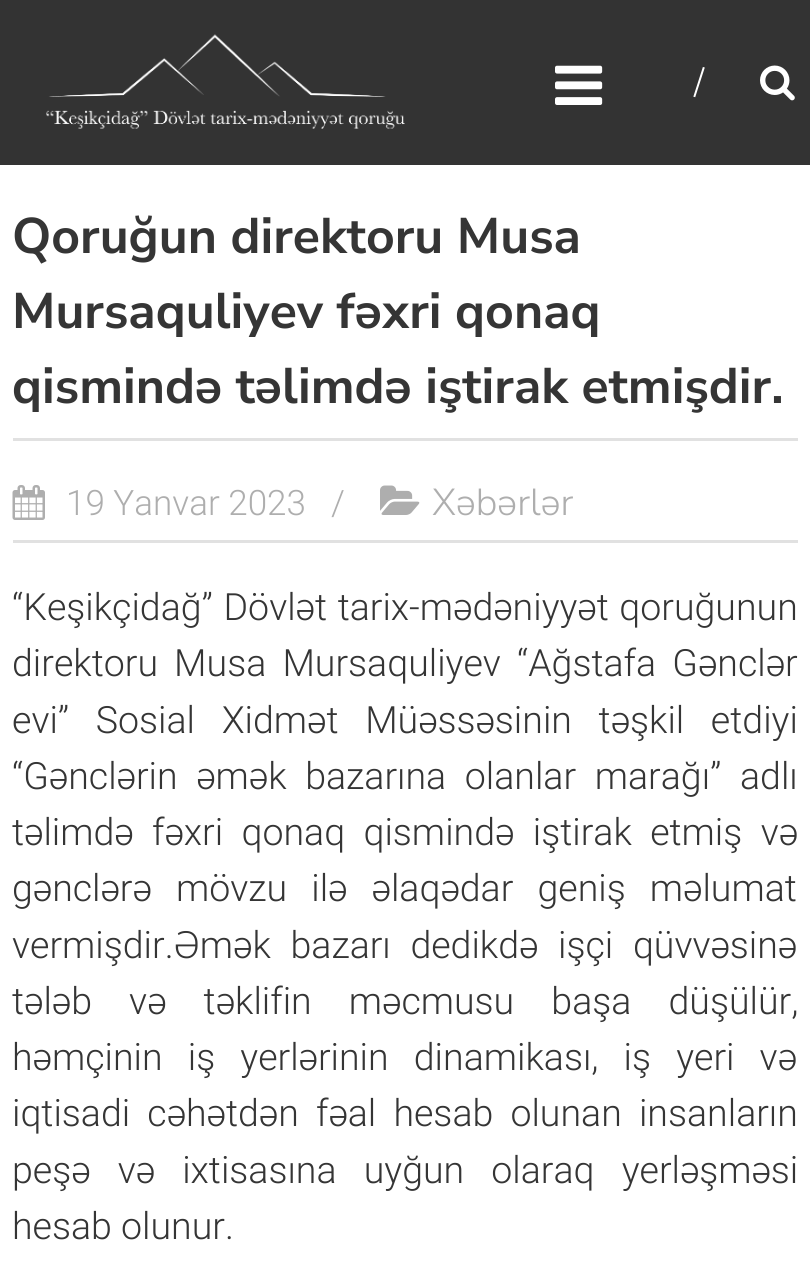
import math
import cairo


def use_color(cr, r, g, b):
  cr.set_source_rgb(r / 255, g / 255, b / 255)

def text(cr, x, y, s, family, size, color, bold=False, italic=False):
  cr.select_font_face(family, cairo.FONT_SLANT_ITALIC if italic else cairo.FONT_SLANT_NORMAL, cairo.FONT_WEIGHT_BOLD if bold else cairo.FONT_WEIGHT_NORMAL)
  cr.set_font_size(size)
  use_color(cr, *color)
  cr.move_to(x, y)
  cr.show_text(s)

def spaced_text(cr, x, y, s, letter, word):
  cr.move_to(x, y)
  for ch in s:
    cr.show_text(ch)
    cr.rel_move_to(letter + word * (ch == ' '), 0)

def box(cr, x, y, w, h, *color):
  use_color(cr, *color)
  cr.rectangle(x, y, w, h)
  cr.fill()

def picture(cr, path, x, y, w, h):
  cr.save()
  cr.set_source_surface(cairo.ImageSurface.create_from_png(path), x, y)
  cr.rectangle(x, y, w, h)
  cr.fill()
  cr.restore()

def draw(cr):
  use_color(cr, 255, 255, 255)
  cr.paint()
  box(cr, 0, 0, 810, 165, 51, 51, 51)
  picture(cr, "img_01.png", 46, 34, 359, 95)
  picture(cr, "img_02.png", 555, 65, 48, 40)
  picture(cr, "img_03.png", 760, 65, 35, 36)
  box(cr, 13, 438, 785, 3, 225, 225, 225)
  box(cr, 13, 540, 785, 3, 225, 225, 225)
  picture(cr, "img_04.png", 12, 485, 33, 35)
  picture(cr, "img_05.png", 380, 485, 40, 30)
  text(cr, 694, 95, "/", "Nunito Sans Light", 37.5, (255, 255, 255))
  text(cr, 12, 253, "Qoruğun direktoru Musa", "Nunito Sans", 50, (53, 53, 53), bold=True)
  text(cr, 12, 328, "Mursaquliyev fəxri qonaq", "Nunito Sans", 50, (53, 53, 53), bold=True)
  text(cr, 12, 403, "qismində təlimdə iştirak etmişdir.", "Nunito Sans", 50, (53, 53, 53), bold=True)
  text(cr, 66, 515, "19 Yanvar 2023", "Roboto Light", 35, (174, 174, 174))
  text(cr, 331, 515, "/", "Roboto Light", 35, (174, 174, 174))
  text(cr, 432, 515, "Xəbərlər", "Nunito Sans Light", 37.5, (174, 174, 174))
  cr.select_font_face("Roboto Light")
  use_color(cr, 53, 53, 53)
  spaced_text(cr, 12, 620, "“Keşikçidağ” Dövlət tarix-mədəniyyət qoruğunun", 0, 1.5)
  spaced_text(cr, 12, 676, "direktoru Musa Mursaquliyev “Ağstafa Gənclər", 0, 7)
  spaced_text(cr, 12, 733, "evi” Sosial Xidmət Müəssəsinin təşkil etdiyi", 0, 17.5)
  spaced_text(cr, 12, 789, "“Gənclərin əmək bazarına olanlar marağı” adlı", 0, 9.5)
  spaced_text(cr, 12, 845, "təlimdə fəxri qonaq qismində iştirak etmiş və", 0, 9.25)
  spaced_text(cr, 12, 901, "gənclərə mövzu ilə əlaqədar geniş məlumat", 0, 15)
  spaced_text(cr, 12, 958, "vermişdir.Əmək bazarı dedikdə işçi qüvvəsinə", 0, 10.5)
  spaced_text(cr, 12, 1014, "tələb və təklifin məcmusu başa düşülür,", 0, 28)
  spaced_text(cr, 12, 1070, "həmçinin iş yerlərinin dinamikası, iş yeri və", 0, 16)
  spaced_text(cr, 12, 1126, "iqtisadi cəhətdən fəal hesab olunan insanların", 0, 8)
  spaced_text(cr, 12, 1183, "peşə və ixtisasına uyğun olaraq yerləşməsi", 0, 18)
  text(cr, 12, 1239, "hesab olunur.", "Roboto Light", 37.5, (53, 53, 53))


surface = cairo.ImageSurface(cairo.FORMAT_RGB24, 810, 1288)
cr = cairo.Context(surface)
options = cairo.FontOptions()
options.set_hint_metrics(cairo.HINT_METRICS_OFF)
options.set_hint_style(cairo.HINT_STYLE_NONE)
cr.set_font_options(options)
cr.set_miter_limit(4)
draw(cr)
surface.write_to_png("out.png")
